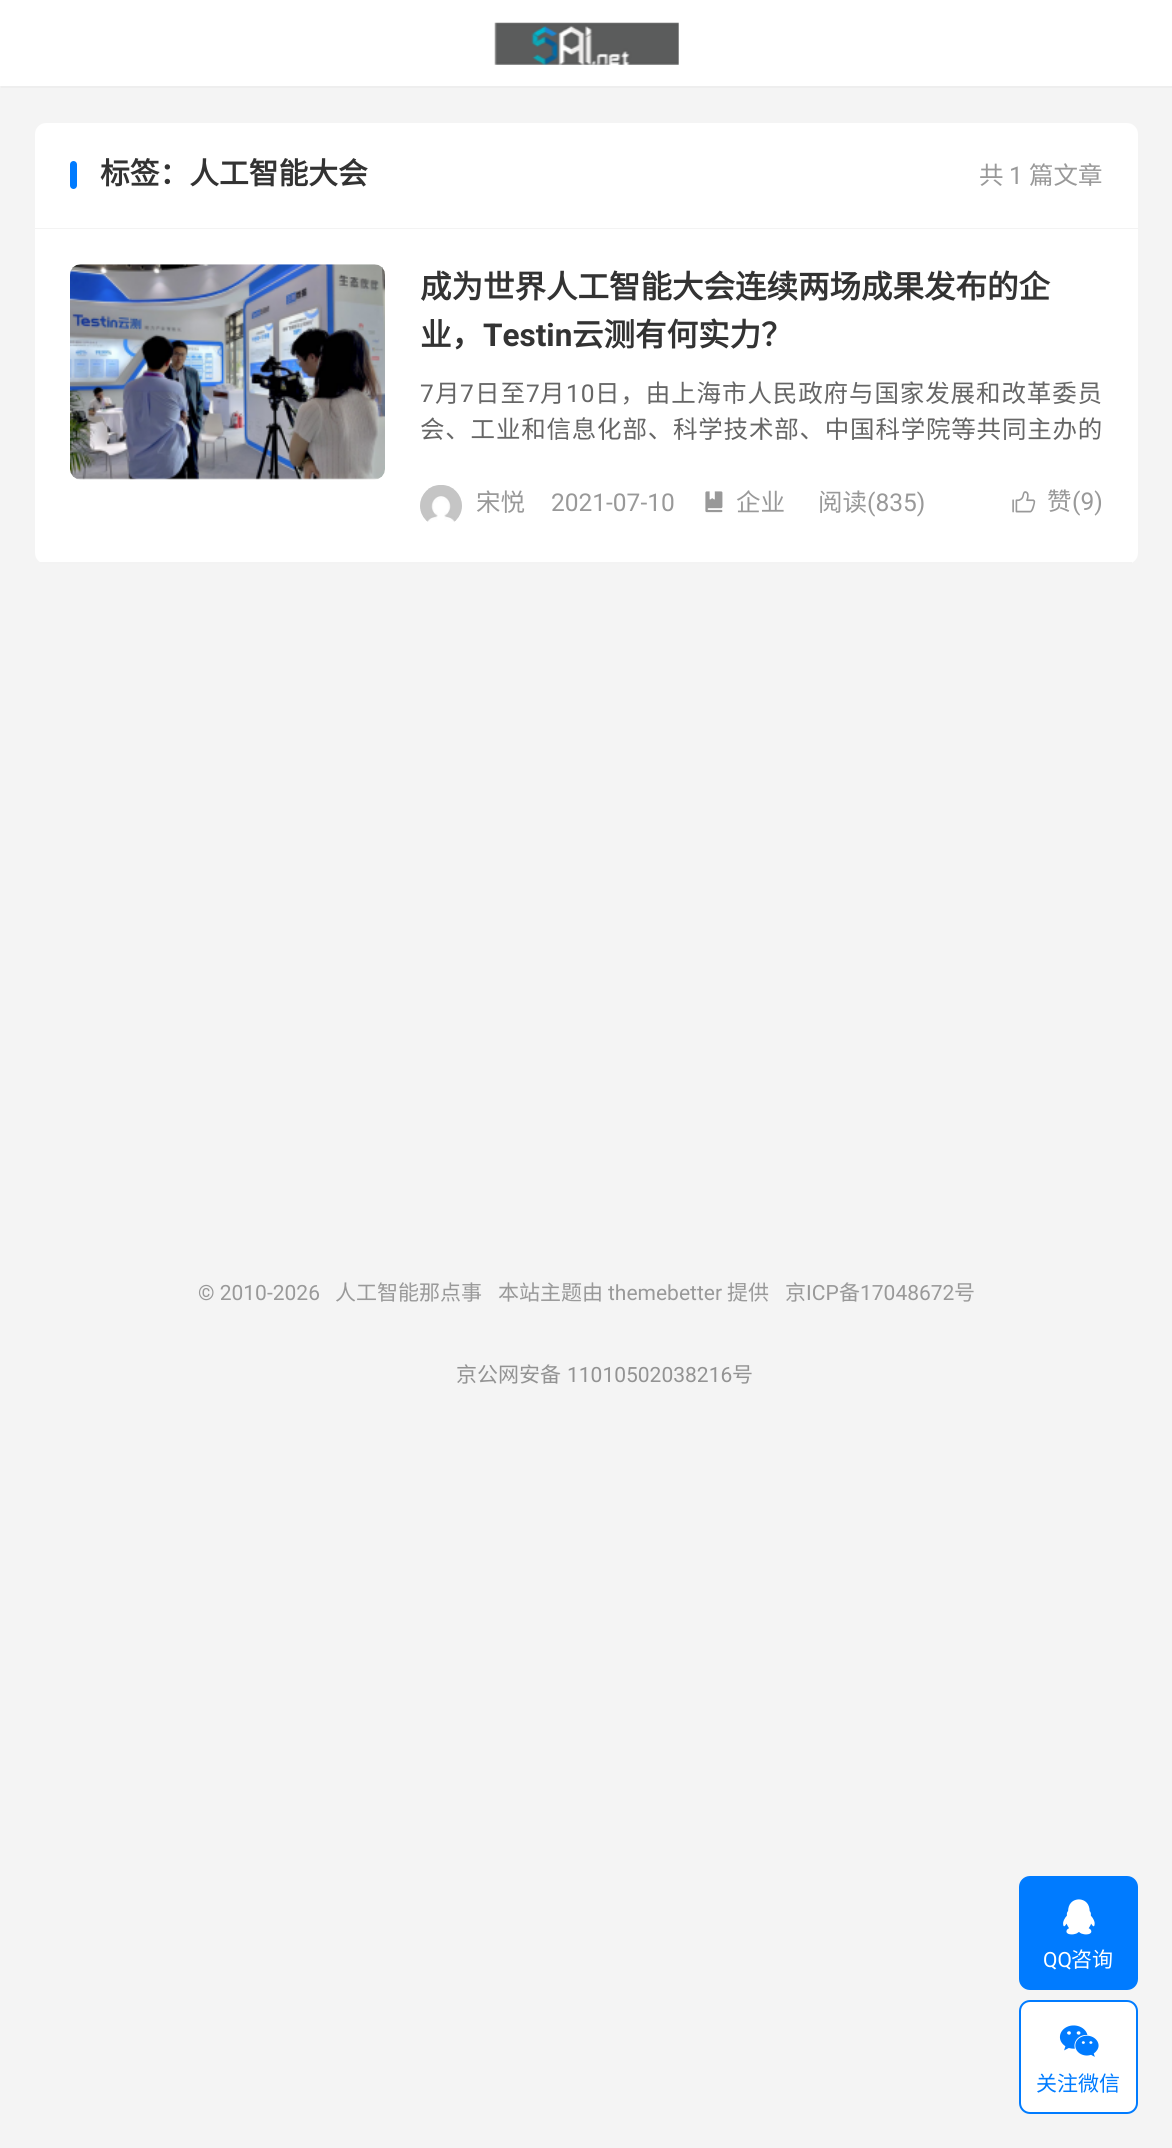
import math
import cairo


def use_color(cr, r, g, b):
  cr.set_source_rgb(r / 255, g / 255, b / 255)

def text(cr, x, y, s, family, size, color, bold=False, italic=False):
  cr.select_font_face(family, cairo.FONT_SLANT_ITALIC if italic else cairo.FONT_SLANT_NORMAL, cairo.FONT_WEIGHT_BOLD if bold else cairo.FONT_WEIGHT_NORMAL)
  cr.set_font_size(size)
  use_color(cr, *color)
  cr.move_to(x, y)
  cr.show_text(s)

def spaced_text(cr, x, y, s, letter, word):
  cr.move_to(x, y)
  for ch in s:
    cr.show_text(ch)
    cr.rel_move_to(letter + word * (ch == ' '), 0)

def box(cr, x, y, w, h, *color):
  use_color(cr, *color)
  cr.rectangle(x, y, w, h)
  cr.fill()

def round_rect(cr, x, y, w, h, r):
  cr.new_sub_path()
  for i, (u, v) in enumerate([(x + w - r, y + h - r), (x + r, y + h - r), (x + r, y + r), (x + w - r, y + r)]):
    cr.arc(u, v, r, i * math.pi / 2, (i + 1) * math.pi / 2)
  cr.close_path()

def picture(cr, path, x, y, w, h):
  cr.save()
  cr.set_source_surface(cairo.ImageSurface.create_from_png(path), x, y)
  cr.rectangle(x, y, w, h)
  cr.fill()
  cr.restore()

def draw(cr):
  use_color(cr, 244, 244, 244)
  cr.paint()
  box(cr, 0, 0, 1172, 88, 255, 255, 255)
  picture(cr, "img_01.png", 494, 22, 185, 43)
  use_color(cr, 238, 238, 238)
  round_rect(cr, 0, 86, 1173, 2, 1)
  cr.fill()
  use_color(cr, 255, 255, 255)
  cr.new_path()
  cr.move_to(46, 123)
  cr.line_to(1127, 123)
  cr.curve_to(1133, 123, 1138, 128, 1138, 134)
  cr.line_to(1138, 229)
  cr.line_to(35, 229)
  cr.line_to(35, 134)
  cr.curve_to(35, 128, 40, 123, 46, 123)
  cr.close_path()
  cr.fill()
  box(cr, 35, 228, 1103, 1, 243, 243, 243)
  use_color(cr, 0, 123, 255)
  round_rect(cr, 70, 161, 7, 28, 3.5)
  cr.fill()
  use_color(cr, 255, 255, 255)
  cr.new_path()
  cr.move_to(35, 229)
  cr.line_to(1138, 229)
  cr.line_to(1138, 553)
  cr.curve_to(1138, 559, 1133, 564, 1127, 564)
  cr.line_to(46, 564)
  cr.curve_to(40, 564, 35, 559, 35, 553)
  cr.close_path()
  cr.fill()
  box(cr, 40, 562, 1092, 2, 243, 243, 243)
  picture(cr, "img_02.png", 70, 264, 315, 216)
  picture(cr, "img_03.png", 420, 485, 42, 37)
  picture(cr, "img_04.png", 705, 491, 18, 22)
  picture(cr, "img_05.png", 1012, 491, 24, 22)
  use_color(cr, 0, 123, 255)
  round_rect(cr, 1020, 1877, 117, 112, 10)
  cr.fill_preserve()
  cr.stroke()
  picture(cr, "img_06.png", 1063, 1899, 32, 36)
  use_color(cr, 255, 255, 255)
  round_rect(cr, 1020, 2001, 117, 112, 10)
  cr.fill_preserve()
  use_color(cr, 0, 123, 255)
  cr.stroke()
  picture(cr, "img_07.png", 1059, 2025, 40, 32)
  text(cr, 100, 184, "标签：人工智能大会", "Noto Sans CJK SC", 29.75, (51, 51, 51), bold=True)
  text(cr, 979, 184, "共", "Noto Sans CJK SC", 24.5, (153, 153, 153))
  text(cr, 1009, 184, "1", "Roboto", 24.5, (153, 153, 153))
  text(cr, 1029, 184, "篇文章", "Noto Sans CJK SC", 24.5, (153, 153, 153))
  text(cr, 420, 298, "成为世界人工智能大会连续两场成果发布的企", "Noto Sans CJK SC", 31.5, (51, 51, 51), bold=True)
  text(cr, 420, 346, "业，", "Noto Sans CJK SC", 31.5, (51, 51, 51), bold=True)
  text(cr, 483, 346, "Testin", "Roboto", 31.5, (51, 51, 51), bold=True)
  text(cr, 572, 346, "云测有何实力？", "Noto Sans CJK SC", 31.5, (51, 51, 51), bold=True)
  cr.select_font_face("Roboto")
  cr.set_font_size(24.5)
  use_color(cr, 102, 102, 102)
  spaced_text(cr, 420, 402, "7", 0.9, 0)
  cr.select_font_face("Noto Sans CJK SC")
  spaced_text(cr, 435, 402, "月", 0.9, 0)
  cr.select_font_face("Roboto")
  spaced_text(cr, 460, 402, "7", 0.9, 0)
  cr.select_font_face("Noto Sans CJK SC")
  spaced_text(cr, 475, 402, "日至", 0.9, 0)
  cr.select_font_face("Roboto")
  spaced_text(cr, 526, 402, "7", 0.9, 0)
  cr.select_font_face("Noto Sans CJK SC")
  spaced_text(cr, 540, 402, "月", 0.9, 0)
  cr.select_font_face("Roboto")
  spaced_text(cr, 566, 402, "10", 0.9, 0)
  cr.select_font_face("Noto Sans CJK SC")
  spaced_text(cr, 595, 402, "日，由上海市人民政府与国家发展和改革委员", 0.9, 0)
  spaced_text(cr, 420, 438, "会、工业和信息化部、科学技术部、中国科学院等共同主办的", 0.8, 0)
  text(cr, 476, 511, "宋悦", "Noto Sans CJK SC", 24.5, (153, 153, 153))
  text(cr, 551, 511, "2021-07-10", "Roboto", 24.5, (153, 153, 153))
  text(cr, 736, 511, "企业", "Noto Sans CJK SC", 24.5, (153, 153, 153))
  text(cr, 818, 511, "阅读", "Noto Sans CJK SC", 24.5, (153, 153, 153))
  text(cr, 867, 511, "(835)", "Roboto", 24.5, (153, 153, 153))
  text(cr, 1047, 510, "赞", "Noto Sans CJK SC", 24.5, (153, 153, 153))
  text(cr, 1072, 510, "(9)", "Roboto", 24.5, (153, 153, 153))
  text(cr, 198, 1300, "© 2010-2026", "Roboto", 21, (153, 153, 153))
  text(cr, 335, 1300, "人工智能那点事", "Noto Sans CJK SC", 21, (153, 153, 153))
  text(cr, 498, 1300, "本站主题由", "Noto Sans CJK SC", 21, (153, 153, 153))
  text(cr, 608, 1300, "themebetter", "Roboto", 21, (153, 153, 153))
  text(cr, 727, 1300, "提供", "Noto Sans CJK SC", 21, (153, 153, 153))
  text(cr, 785, 1300, "京", "Noto Sans CJK SC", 21, (153, 153, 153))
  text(cr, 806, 1300, "ICP", "Roboto", 21, (153, 153, 153))
  text(cr, 839, 1300, "备", "Noto Sans CJK SC", 21, (153, 153, 153))
  text(cr, 860, 1300, "17048672", "Roboto", 21, (153, 153, 153))
  text(cr, 954, 1300, "号", "Noto Sans CJK SC", 21, (153, 153, 153))
  text(cr, 456, 1382, "京公网安备", "Noto Sans CJK SC", 21, (147, 147, 147))
  text(cr, 567, 1382, "11010502038216", "Roboto", 21, (147, 147, 147))
  text(cr, 732, 1382, "号", "Noto Sans CJK SC", 21, (147, 147, 147))
  text(cr, 1043, 1967, "QQ", "Roboto", 21, (255, 255, 255))
  text(cr, 1071, 1967, "咨询", "Noto Sans CJK SC", 21, (255, 255, 255))
  text(cr, 1036, 2091, "关注微信", "Noto Sans CJK SC", 21, (0, 123, 255))


surface = cairo.ImageSurface(cairo.FORMAT_RGB24, 1172, 2148)
cr = cairo.Context(surface)
options = cairo.FontOptions()
options.set_hint_metrics(cairo.HINT_METRICS_OFF)
options.set_hint_style(cairo.HINT_STYLE_NONE)
cr.set_font_options(options)
cr.set_miter_limit(4)
draw(cr)
surface.write_to_png("out.png")
